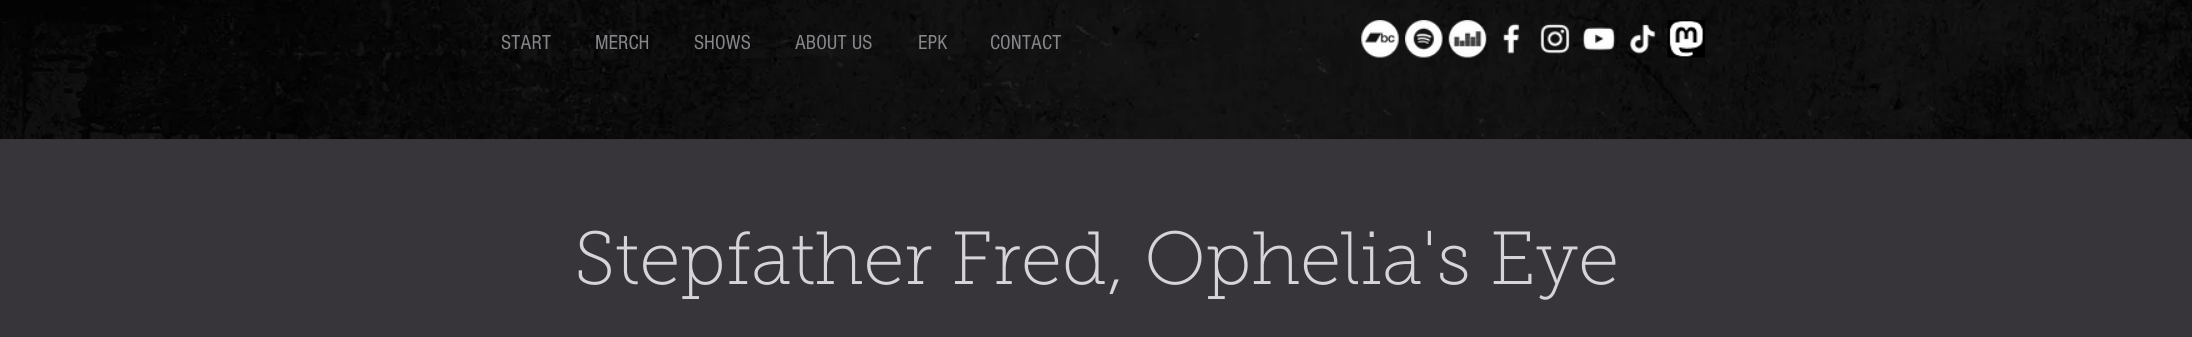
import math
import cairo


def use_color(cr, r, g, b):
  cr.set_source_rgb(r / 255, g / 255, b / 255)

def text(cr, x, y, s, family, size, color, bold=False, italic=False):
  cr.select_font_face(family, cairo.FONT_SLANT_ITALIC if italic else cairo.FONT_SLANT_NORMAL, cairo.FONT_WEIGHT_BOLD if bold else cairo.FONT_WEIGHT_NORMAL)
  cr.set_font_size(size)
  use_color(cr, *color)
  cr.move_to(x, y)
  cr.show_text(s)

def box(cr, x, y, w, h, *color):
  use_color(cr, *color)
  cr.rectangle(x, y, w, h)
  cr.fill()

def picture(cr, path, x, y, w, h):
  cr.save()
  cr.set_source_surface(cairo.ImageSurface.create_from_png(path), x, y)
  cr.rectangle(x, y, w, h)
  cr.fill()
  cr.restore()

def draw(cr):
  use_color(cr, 255, 255, 255)
  cr.paint()
  picture(cr, "img_01.png", 0, 0, 2192, 139)
  picture(cr, "img_02.png", 1361, 20, 38, 38)
  picture(cr, "img_03.png", 1405, 20, 38, 38)
  picture(cr, "img_04.png", 1448, 20, 39, 38)
  picture(cr, "img_05.png", 1503, 23, 17, 31)
  picture(cr, "img_06.png", 1540, 23, 30, 31)
  picture(cr, "img_07.png", 1582, 27, 34, 24)
  picture(cr, "img_08.png", 1629, 24, 27, 30)
  picture(cr, "img_09.png", 1667, 20, 38, 38)
  box(cr, 0, 139, 2192, 198, 56, 53, 58)
  text(cr, 501, 49, "START", "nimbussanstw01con", 21, (136, 134, 139))
  text(cr, 595, 49, "MERCH", "nimbussanstw01con", 21, (136, 134, 139))
  text(cr, 694, 49, "SHOWS", "nimbussanstw01con", 21, (136, 134, 139))
  text(cr, 795, 49, "ABOUT US", "nimbussanstw01con", 21, (136, 134, 139))
  text(cr, 918, 49, "EPK", "nimbussanstw01con", 21, (136, 134, 139))
  text(cr, 990, 49, "CONTACT", "nimbussanstw01con", 21, (136, 134, 139))
  text(cr, 574, 284, "Stepfather Fred, Ophelia's Eye", "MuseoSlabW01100 Thin", 75, (214, 212, 217))


surface = cairo.ImageSurface(cairo.FORMAT_RGB24, 2192, 337)
cr = cairo.Context(surface)
options = cairo.FontOptions()
options.set_hint_metrics(cairo.HINT_METRICS_OFF)
options.set_hint_style(cairo.HINT_STYLE_NONE)
cr.set_font_options(options)
cr.set_miter_limit(4)
draw(cr)
surface.write_to_png("out.png")
